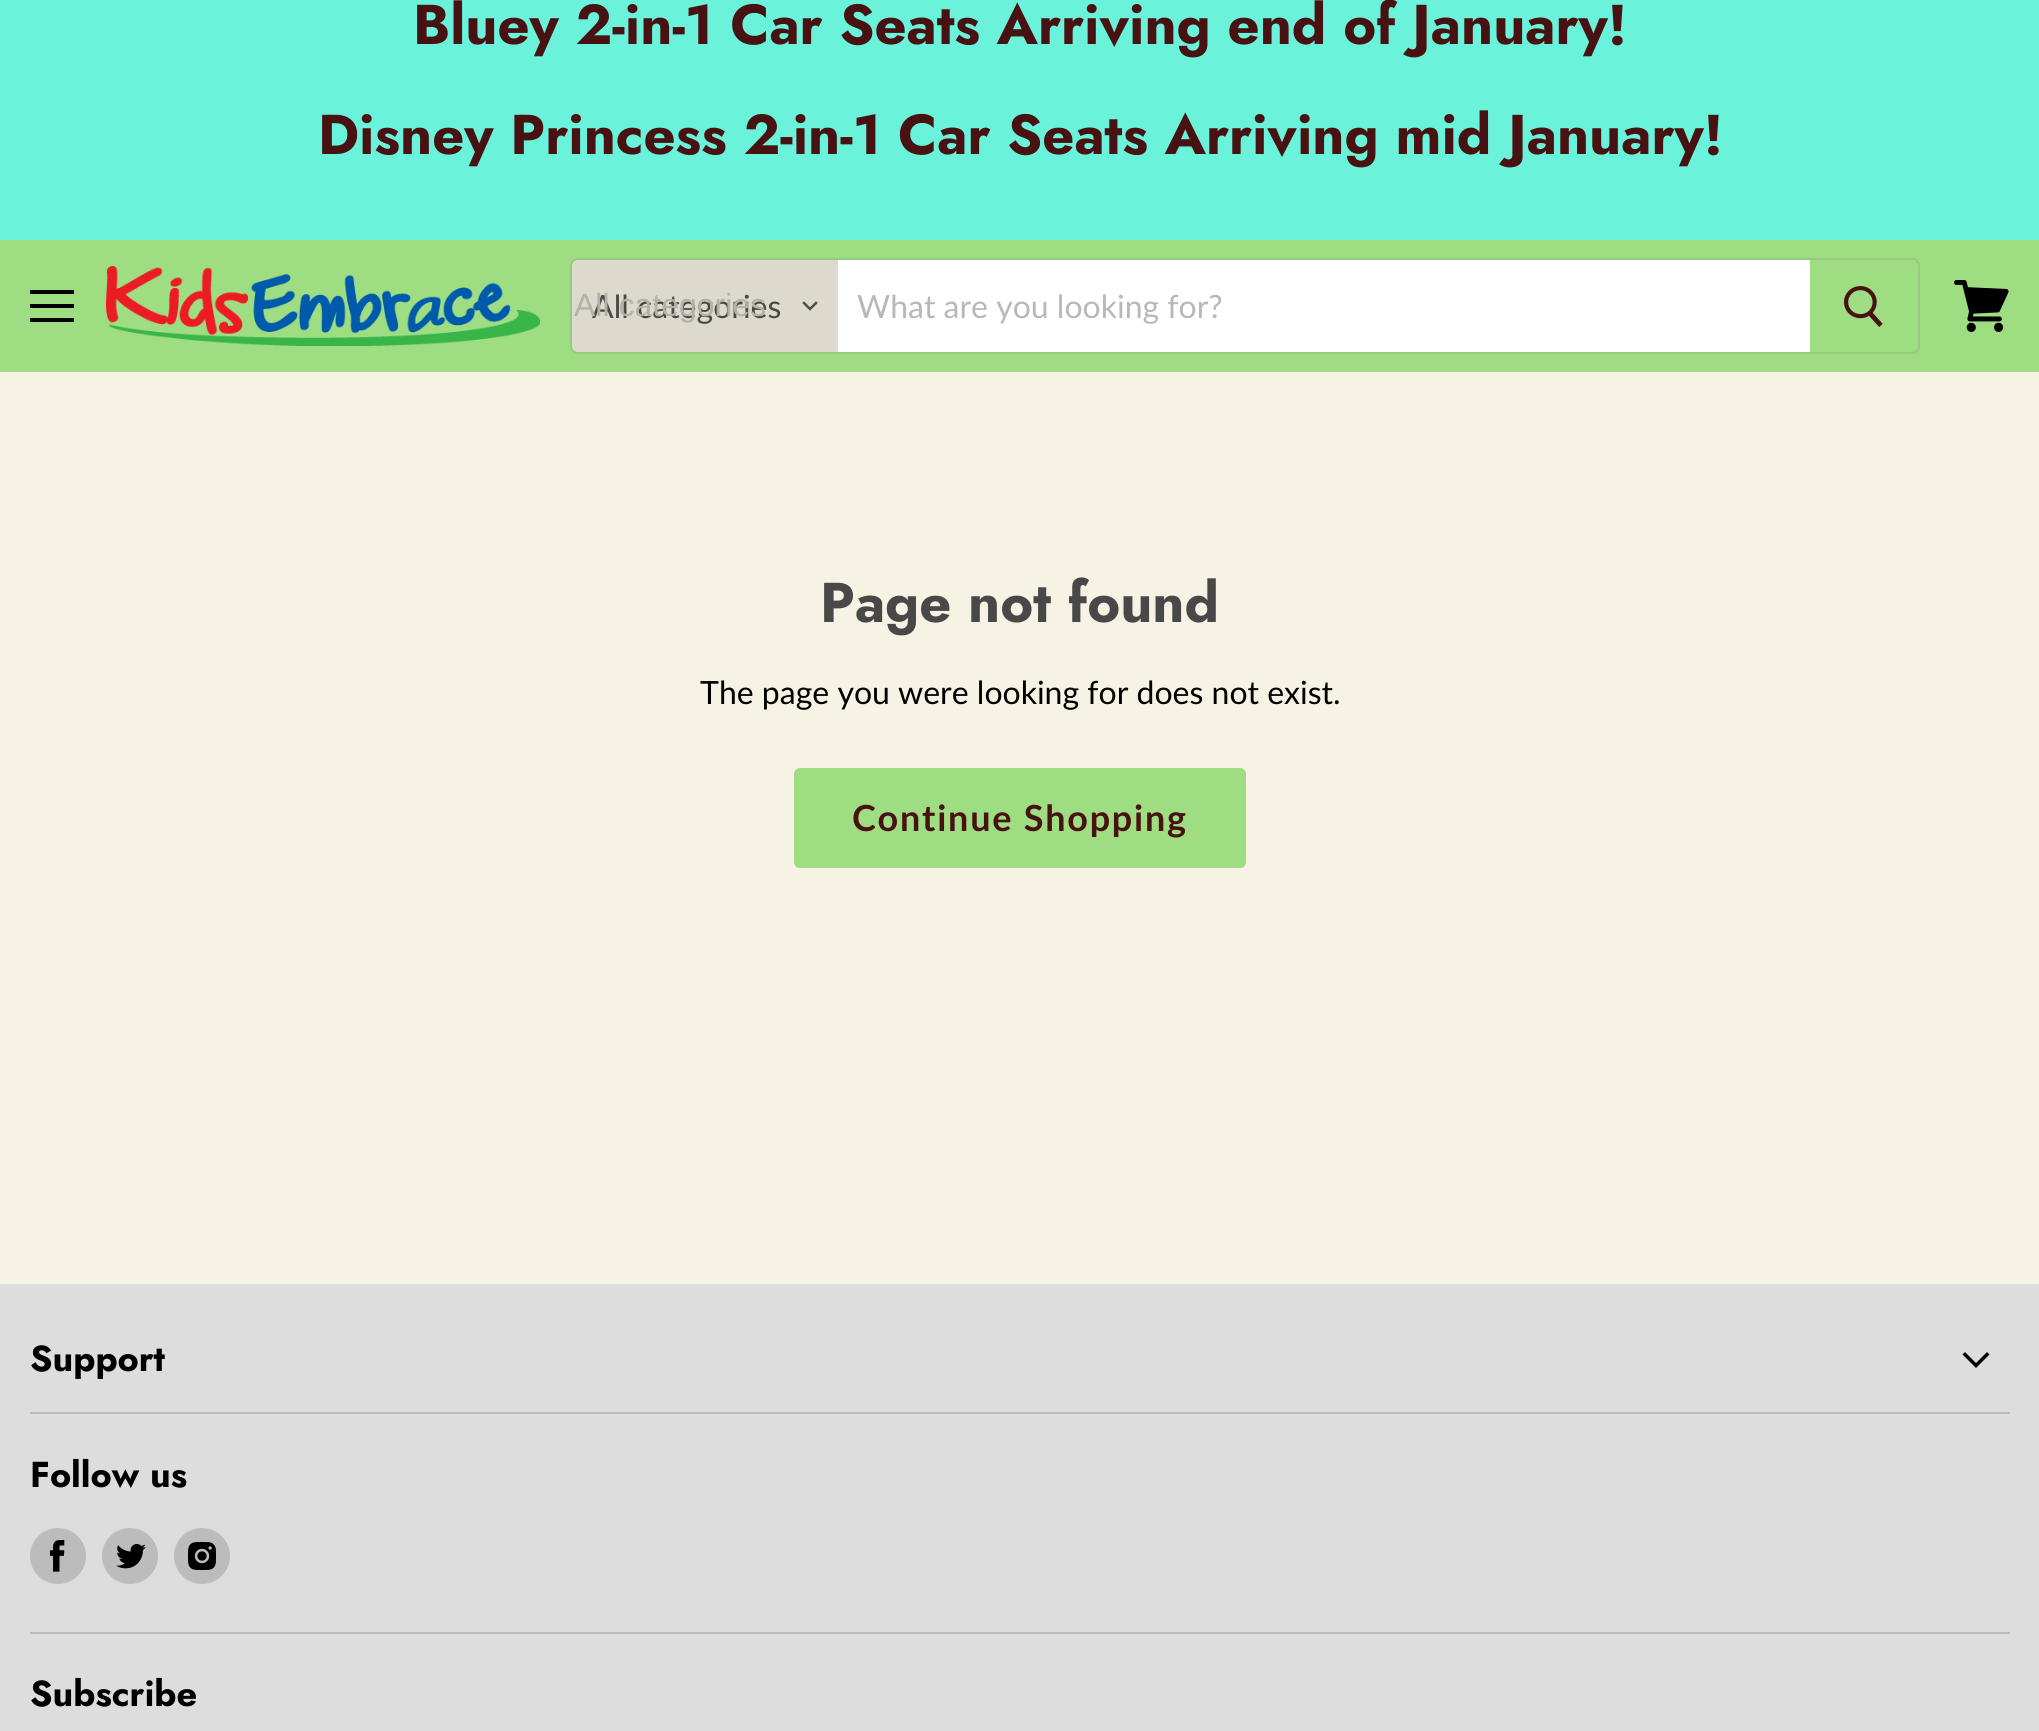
import math
import cairo


def use_color(cr, r, g, b):
  cr.set_source_rgb(r / 255, g / 255, b / 255)

def text(cr, x, y, s, family, size, color, bold=False, italic=False):
  cr.select_font_face(family, cairo.FONT_SLANT_ITALIC if italic else cairo.FONT_SLANT_NORMAL, cairo.FONT_WEIGHT_BOLD if bold else cairo.FONT_WEIGHT_NORMAL)
  cr.set_font_size(size)
  use_color(cr, *color)
  cr.move_to(x, y)
  cr.show_text(s)

def spaced_text(cr, x, y, s, letter, word):
  cr.move_to(x, y)
  for ch in s:
    cr.show_text(ch)
    cr.rel_move_to(letter + word * (ch == ' '), 0)

def box(cr, x, y, w, h, *color):
  use_color(cr, *color)
  cr.rectangle(x, y, w, h)
  cr.fill()

def round_rect(cr, x, y, w, h, r):
  cr.new_sub_path()
  for i, (u, v) in enumerate([(x + w - r, y + h - r), (x + r, y + h - r), (x + r, y + r), (x + w - r, y + r)]):
    cr.arc(u, v, r, i * math.pi / 2, (i + 1) * math.pi / 2)
  cr.close_path()

def picture(cr, path, x, y, w, h):
  cr.save()
  cr.set_source_surface(cairo.ImageSurface.create_from_png(path), x, y)
  cr.rectangle(x, y, w, h)
  cr.fill()
  cr.restore()

def draw(cr):
  use_color(cr, 246, 242, 228)
  cr.paint()
  box(cr, 0, 0, 2039, 240, 106, 242, 218)
  box(cr, 0, 240, 2039, 132, 159, 221, 130)
  box(cr, 30, 290, 44, 4, 0, 0, 0)
  box(cr, 30, 304, 44, 4, 0, 0, 0)
  box(cr, 30, 318, 44, 4, 0, 0, 0)
  picture(cr, "img_01.png", 106, 266, 434, 80)
  round_rect(cr, 571, 259, 1348, 94, 7)
  cr.set_source_rgba(0.482, 0.475, 0.447, 0.2)
  cr.stroke()
  use_color(cr, 221, 218, 205)
  cr.new_path()
  cr.move_to(578, 260)
  cr.line_to(838, 260)
  cr.line_to(838, 352)
  cr.line_to(578, 352)
  cr.curve_to(574.5, 352, 572, 349.5, 572, 346)
  cr.line_to(572, 266)
  cr.curve_to(572, 262.5, 574.5, 260, 578, 260)
  cr.close_path()
  cr.fill()
  cr.new_path()
  cr.move_to(810, 309)
  cr.line_to(816, 303)
  cr.move_to(810, 309)
  cr.line_to(804, 303)
  use_color(cr, 77, 77, 77)
  cr.set_line_width(2.5)
  cr.set_line_cap(cairo.LINE_CAP_SQUARE)
  cr.stroke()
  box(cr, 838, 260, 972, 92, 255, 255, 255)
  use_color(cr, 159, 221, 130)
  cr.new_path()
  cr.move_to(1811, 261)
  cr.line_to(1912, 261)
  cr.curve_to(1915, 261, 1917, 263, 1917, 266)
  cr.line_to(1917, 346)
  cr.curve_to(1917, 349, 1915, 351, 1912, 351)
  cr.line_to(1811, 351)
  cr.close_path()
  cr.fill_preserve()
  cr.set_line_width(2)
  cr.set_line_cap(cairo.LINE_CAP_BUTT)
  cr.stroke()
  picture(cr, "img_02.png", 1844, 286, 39, 41)
  picture(cr, "img_03.png", 1954, 280, 55, 52)
  round_rect(cr, 795, 769, 450, 98, 5)
  cr.fill_preserve()
  cr.stroke()
  box(cr, 0, 1284, 2039, 447, 221, 221, 221)
  box(cr, 30, 1412, 1980, 2, 188, 188, 188)
  cr.new_path()
  cr.move_to(1976, 1365.5)
  cr.line_to(1987, 1354.5)
  cr.move_to(1976, 1365.5)
  cr.line_to(1965, 1354.5)
  use_color(cr, 0, 0, 0)
  cr.set_line_width(3.5)
  cr.set_line_cap(cairo.LINE_CAP_SQUARE)
  cr.stroke()
  box(cr, 30, 1632, 1980, 2, 188, 188, 188)
  cr.arc(58, 1556, 28, 0, 2 * math.pi)
  cr.fill()
  picture(cr, "img_04.png", 50, 1540, 15, 32)
  cr.arc(130, 1556, 28, 0, 2 * math.pi)
  cr.fill()
  picture(cr, "img_05.png", 116, 1544, 30, 25)
  cr.arc(202, 1556, 28, 0, 2 * math.pi)
  cr.fill()
  picture(cr, "img_06.png", 188, 1542, 28, 28)
  text(cr, 413, 44, "Bluey 2-in-1 Car Seats Arriving end of January!", "Jost", 56, (72, 18, 18), bold=True)
  text(cr, 318, 154, "Disney Princess 2-in-1 Car Seats Arriving mid January!", "Jost", 56, (72, 18, 18), bold=True)
  text(cr, 592, 318, "All categories", "Lato", 32, (72, 72, 72))
  text(cr, 574, 316, "All categories", "Liberation Sans", 32, (179, 177, 168))
  text(cr, 857, 318, "What are you looking for?", "Lato", 32, (184, 184, 184))
  text(cr, 820, 622, "Page not found", "Jost", 56, (72, 72, 72), bold=True)
  text(cr, 700, 704, "The page you were looking for does not exist.", "Lato", 32, (0, 0, 0))
  cr.select_font_face("Lato", cairo.FONT_SLANT_NORMAL, cairo.FONT_WEIGHT_BOLD)
  cr.set_font_size(36)
  use_color(cr, 72, 18, 18)
  spaced_text(cr, 852, 831, "Continue Shopping", 1.75, 0)
  text(cr, 30, 1371, "Support", "Jost", 36, (0, 0, 0), bold=True)
  text(cr, 30, 1487, "Follow us", "Jost", 36, (0, 0, 0), bold=True)
  text(cr, 30, 1706, "Subscribe", "Jost", 36, (0, 0, 0), bold=True)


surface = cairo.ImageSurface(cairo.FORMAT_RGB24, 2039, 1731)
cr = cairo.Context(surface)
options = cairo.FontOptions()
options.set_hint_metrics(cairo.HINT_METRICS_OFF)
options.set_hint_style(cairo.HINT_STYLE_NONE)
cr.set_font_options(options)
cr.set_miter_limit(4)
draw(cr)
surface.write_to_png("out.png")
